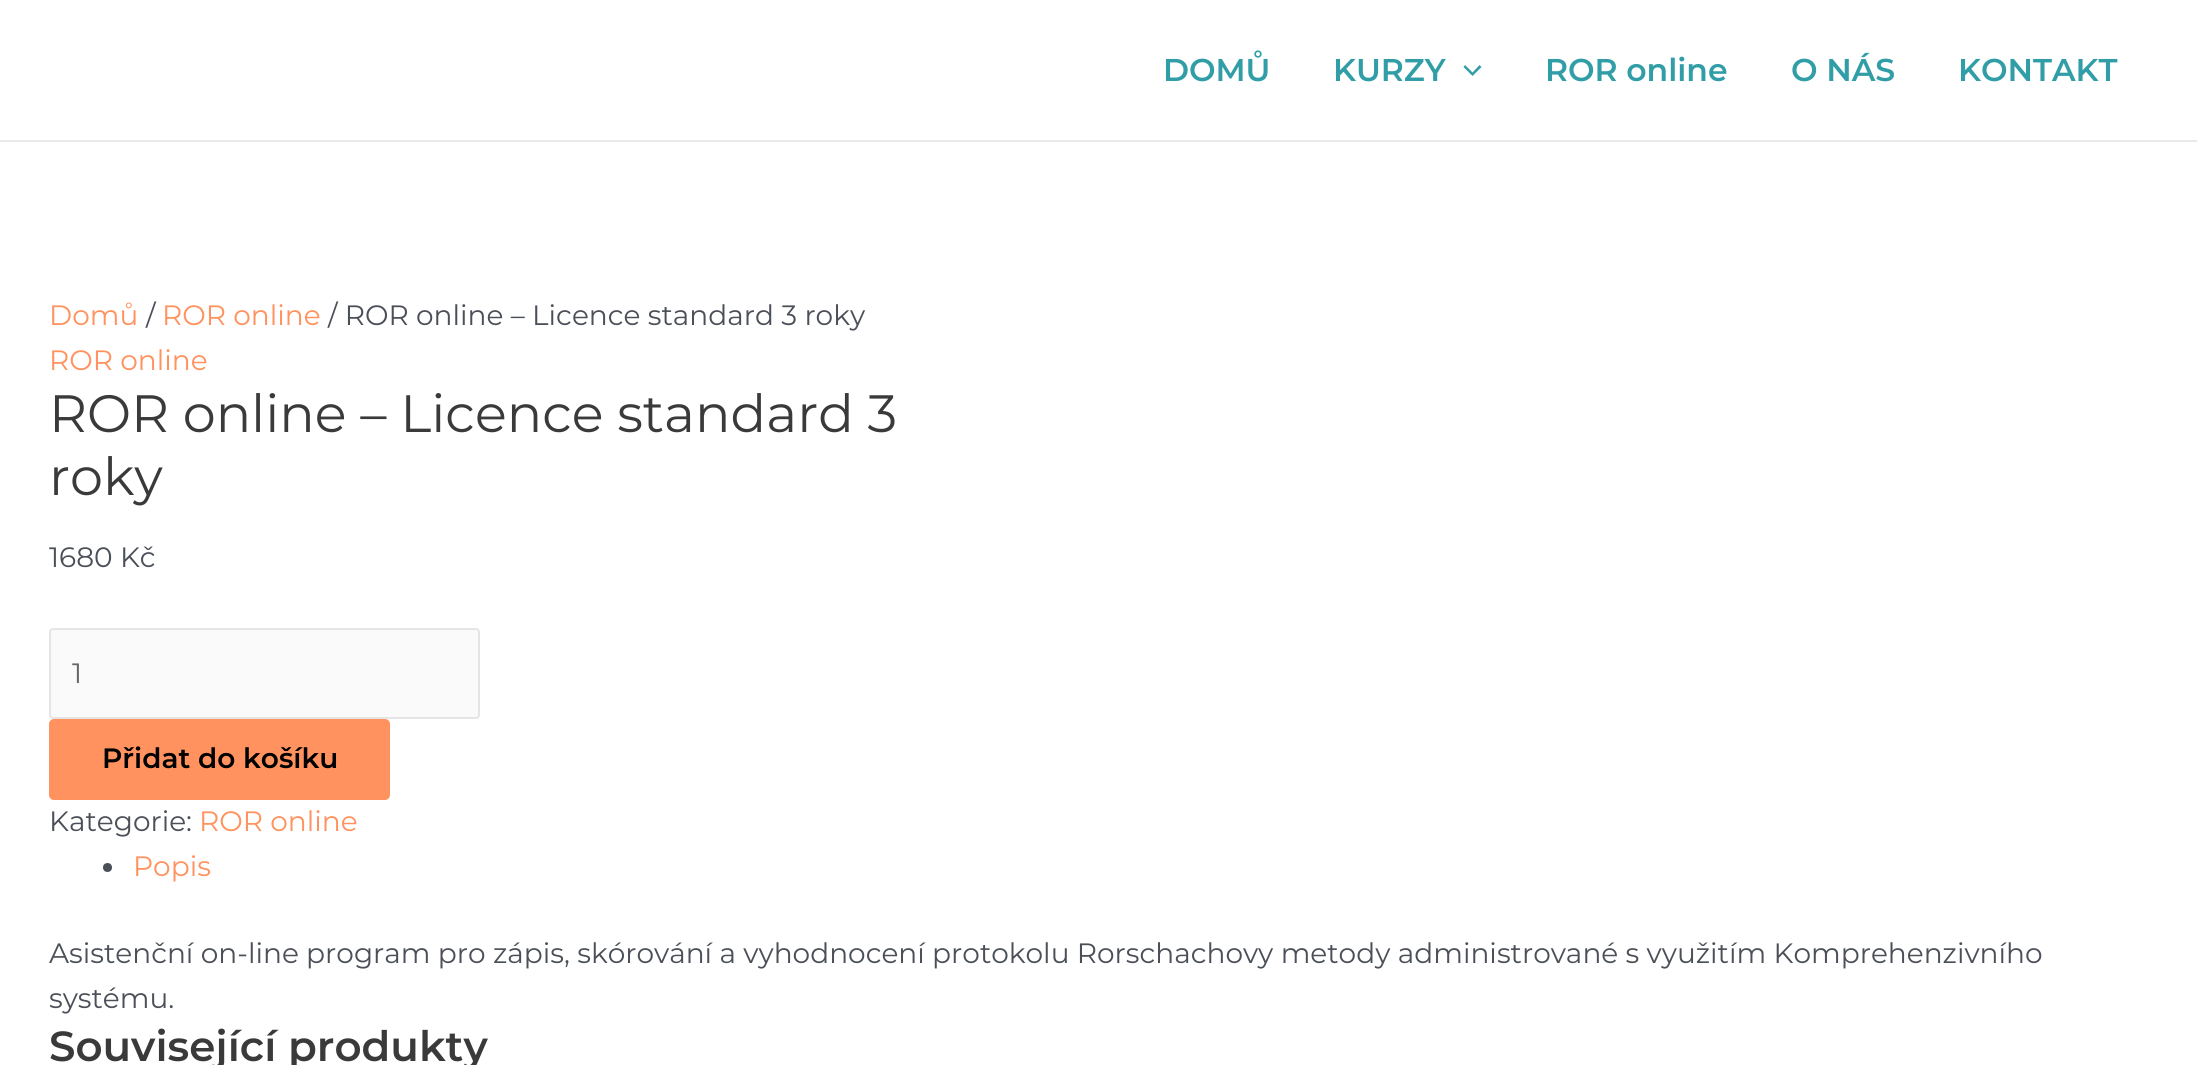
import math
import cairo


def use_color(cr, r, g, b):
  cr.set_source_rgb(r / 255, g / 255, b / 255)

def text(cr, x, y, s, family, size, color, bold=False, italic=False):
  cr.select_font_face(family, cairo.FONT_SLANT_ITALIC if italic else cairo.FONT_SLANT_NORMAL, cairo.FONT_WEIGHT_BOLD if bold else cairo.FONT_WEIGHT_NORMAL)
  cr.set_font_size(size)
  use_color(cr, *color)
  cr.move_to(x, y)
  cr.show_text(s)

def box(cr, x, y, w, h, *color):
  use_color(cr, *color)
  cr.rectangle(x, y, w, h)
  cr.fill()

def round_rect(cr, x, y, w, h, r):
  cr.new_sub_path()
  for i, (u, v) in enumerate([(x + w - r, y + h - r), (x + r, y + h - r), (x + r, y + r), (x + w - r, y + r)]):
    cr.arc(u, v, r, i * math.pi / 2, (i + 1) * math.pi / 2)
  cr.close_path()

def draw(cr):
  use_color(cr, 255, 255, 255)
  cr.paint()
  box(cr, 0, 140, 2197, 2, 234, 234, 234)
  use_color(cr, 49, 158, 167)
  cr.new_path()
  cr.move_to(1463.5, 67)
  cr.line_to(1472.5, 76)
  cr.line_to(1481.5, 67)
  cr.line_to(1479.5, 65)
  cr.line_to(1472.5, 72.5)
  cr.line_to(1465, 65)
  cr.close_path()
  cr.fill()
  use_color(cr, 250, 250, 250)
  round_rect(cr, 50, 629, 429, 89, 3)
  cr.fill_preserve()
  use_color(cr, 229, 229, 229)
  cr.stroke()
  use_color(cr, 255, 146, 94)
  round_rect(cr, 49, 719, 341, 81, 5)
  cr.fill()
  use_color(cr, 75, 79, 88)
  cr.arc(107.5, 867.5, 4.5, 0, 2 * math.pi)
  cr.fill()
  text(cr, 1163, 81, "DOMŮ", "Montserrat SemiBold", 31.5, (49, 158, 167))
  text(cr, 1333, 81, "KURZY", "Montserrat SemiBold", 31.5, (49, 158, 167))
  text(cr, 1545, 81, "ROR online", "Montserrat SemiBold", 31.5, (49, 158, 167))
  text(cr, 1791, 81, "O NÁS", "Montserrat SemiBold", 31.5, (49, 158, 167))
  text(cr, 1958, 81, "KONTAKT", "Montserrat SemiBold", 31.5, (49, 158, 167))
  text(cr, 49, 325, "Domů", "Montserrat", 28, (255, 146, 94))
  text(cr, 146, 325, "/", "Montserrat", 28, (75, 79, 88))
  text(cr, 162, 325, "ROR online", "Montserrat", 28, (255, 146, 94))
  text(cr, 328, 325, "/ ROR online – Licence standard 3 roky", "Montserrat", 28, (75, 79, 88))
  text(cr, 49, 370, "ROR online", "Montserrat", 28, (255, 146, 94))
  text(cr, 49, 432, "ROR online – Licence standard 3", "Montserrat", 52.5, (58, 58, 58))
  text(cr, 49, 495, "roky", "Montserrat", 52.5, (58, 58, 58))
  text(cr, 49, 567, "1680 Kč", "Montserrat", 28, (75, 79, 88))
  text(cr, 72, 683, "1", "Montserrat", 28, (102, 102, 102))
  text(cr, 102, 768, "Přidat do košíku", "Montserrat SemiBold", 28, (0, 0, 0))
  text(cr, 49, 831, "Kategorie:", "Montserrat", 28, (75, 79, 88))
  text(cr, 199, 831, "ROR online", "Montserrat", 28, (255, 146, 94))
  text(cr, 133, 876, "Popis", "Montserrat", 28, (255, 146, 94))
  text(cr, 49, 963, "Asistenční on-line program pro zápis, skórování a vyhodnocení protokolu Rorschachovy metody administrované s využitím Komprehenzivního", "Montserrat", 28, (75, 79, 88))
  text(cr, 49, 1008, "systému.", "Montserrat", 28, (75, 79, 88))
  text(cr, 49, 1061, "Související produkty", "Montserrat SemiBold", 42, (58, 58, 58))


surface = cairo.ImageSurface(cairo.FORMAT_RGB24, 2197, 1065)
cr = cairo.Context(surface)
options = cairo.FontOptions()
options.set_hint_metrics(cairo.HINT_METRICS_OFF)
options.set_hint_style(cairo.HINT_STYLE_NONE)
cr.set_font_options(options)
cr.set_miter_limit(4)
draw(cr)
surface.write_to_png("out.png")
